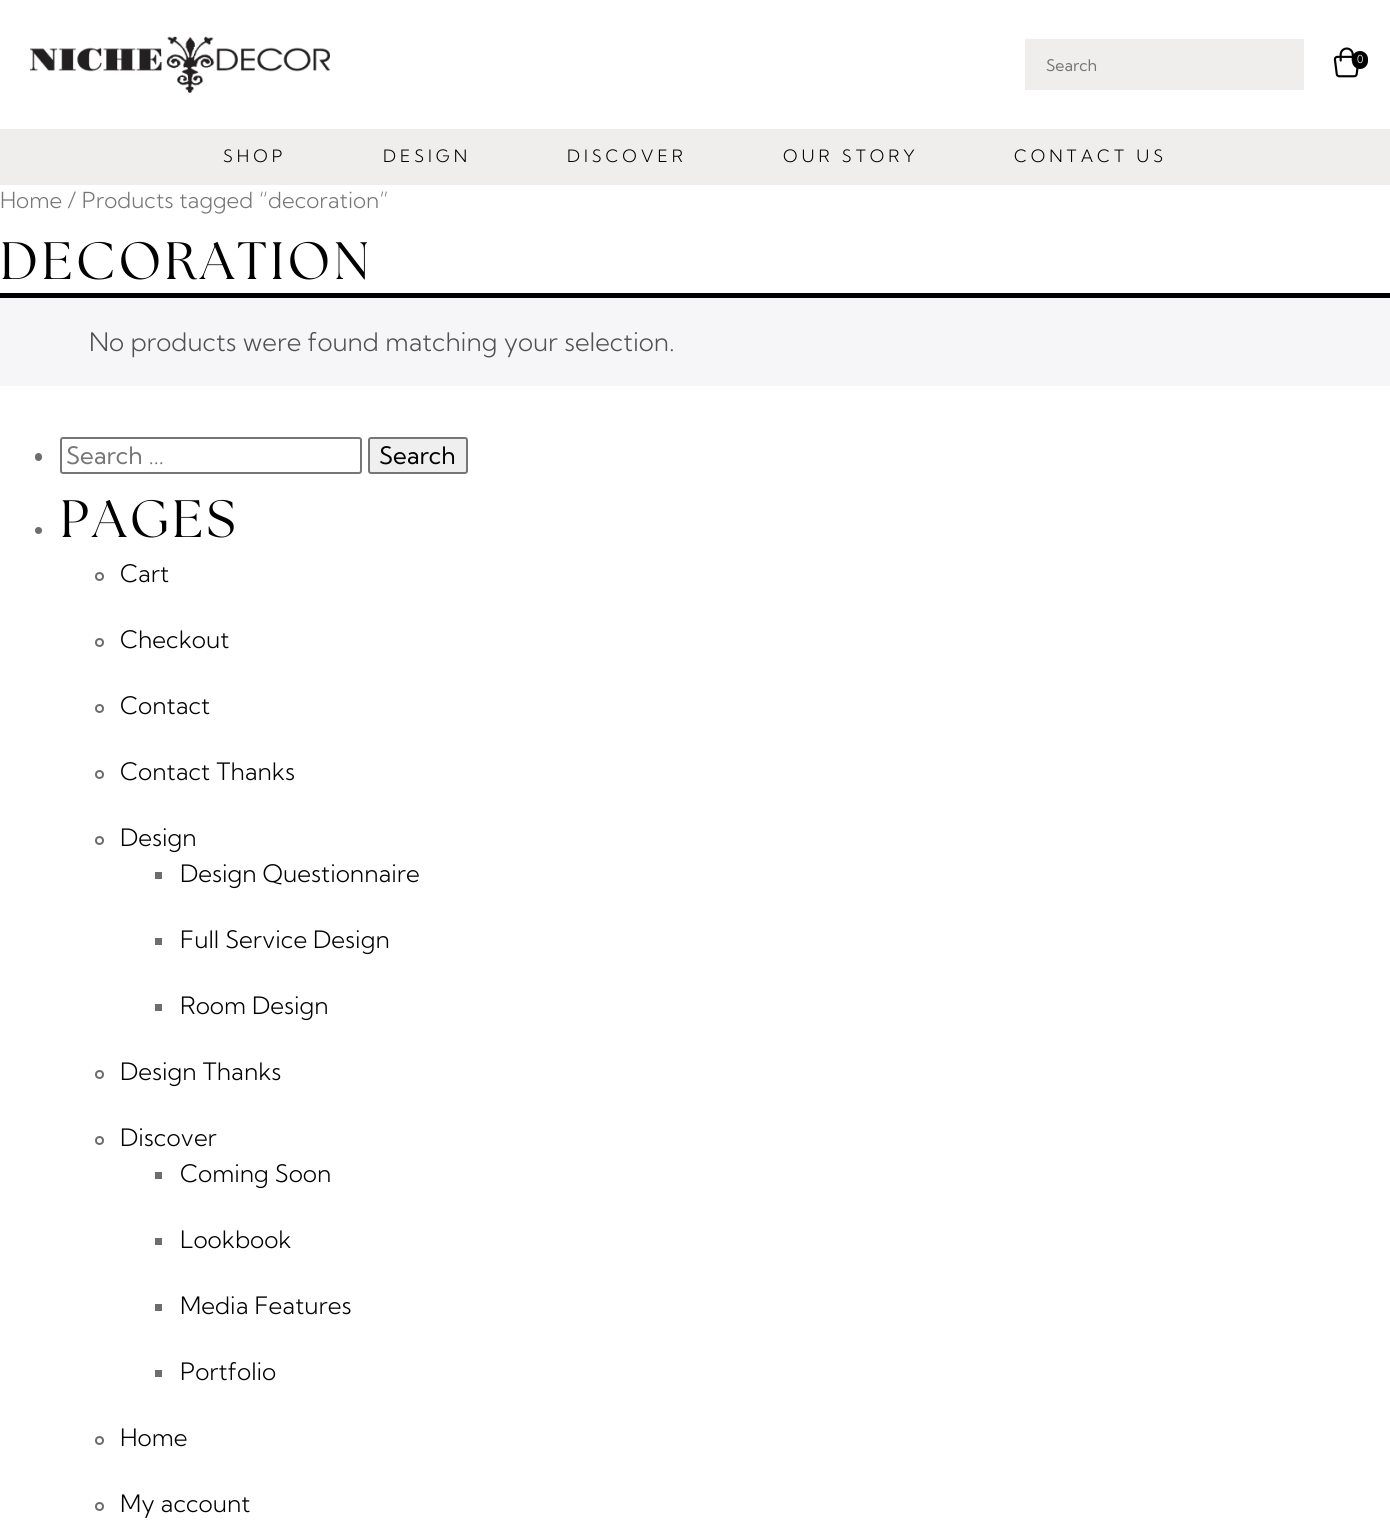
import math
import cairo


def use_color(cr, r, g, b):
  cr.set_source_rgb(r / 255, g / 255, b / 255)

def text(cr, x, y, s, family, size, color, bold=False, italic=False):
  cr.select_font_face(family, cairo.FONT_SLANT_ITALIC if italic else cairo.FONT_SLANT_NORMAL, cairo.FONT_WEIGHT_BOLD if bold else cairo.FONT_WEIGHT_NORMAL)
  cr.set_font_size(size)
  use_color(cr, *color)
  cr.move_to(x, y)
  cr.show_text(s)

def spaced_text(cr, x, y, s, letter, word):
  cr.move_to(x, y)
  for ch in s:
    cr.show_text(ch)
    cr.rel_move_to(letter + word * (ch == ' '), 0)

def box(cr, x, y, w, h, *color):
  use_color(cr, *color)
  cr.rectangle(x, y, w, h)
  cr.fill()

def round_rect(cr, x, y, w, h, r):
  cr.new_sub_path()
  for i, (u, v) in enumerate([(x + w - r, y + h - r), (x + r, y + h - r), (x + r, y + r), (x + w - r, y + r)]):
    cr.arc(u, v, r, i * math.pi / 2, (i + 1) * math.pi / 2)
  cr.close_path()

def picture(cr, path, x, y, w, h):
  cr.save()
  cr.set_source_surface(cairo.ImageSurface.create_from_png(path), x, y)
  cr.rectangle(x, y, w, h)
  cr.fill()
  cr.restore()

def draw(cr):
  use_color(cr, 255, 255, 255)
  cr.paint()
  picture(cr, "img_01.png", 30, 36, 300, 57)
  box(cr, 1025, 39, 279, 51, 240, 238, 237)
  picture(cr, "img_02.png", 1333, 47, 26, 31)
  use_color(cr, 0, 0, 0)
  round_rect(cr, 1352, 51, 16, 18, 8)
  cr.fill()
  box(cr, 0, 129, 1390, 56, 240, 238, 237)
  box(cr, 0, 298, 1390, 88, 246, 245, 248)
  box(cr, 0, 293, 1390, 5, 0, 0, 0)
  use_color(cr, 109, 109, 109)
  round_rect(cr, 35, 453, 7, 8, 3.5)
  cr.fill()
  round_rect(cr, 61, 438, 300, 35, 2)
  use_color(cr, 118, 118, 118)
  cr.stroke()
  use_color(cr, 239, 239, 239)
  round_rect(cr, 369, 438, 98, 35, 2)
  cr.fill_preserve()
  use_color(cr, 118, 118, 118)
  cr.stroke()
  use_color(cr, 109, 109, 109)
  cr.arc(38.5, 530.5, 3.5, 0, 2 * math.pi)
  cr.fill()
  cr.arc(99.5, 576.5, 3.5, 0, 2 * math.pi)
  cr.stroke()
  cr.arc(99.5, 642.5, 3.5, 0, 2 * math.pi)
  cr.stroke()
  cr.arc(99.5, 708.5, 3.5, 0, 2 * math.pi)
  cr.stroke()
  cr.arc(99.5, 774.5, 3.5, 0, 2 * math.pi)
  cr.stroke()
  cr.arc(99.5, 840.5, 3.5, 0, 2 * math.pi)
  cr.stroke()
  box(cr, 155, 872, 7, 7, 109, 109, 109)
  box(cr, 155, 938, 7, 7, 109, 109, 109)
  box(cr, 155, 1004, 7, 7, 109, 109, 109)
  cr.arc(99.5, 1074.5, 3.5, 0, 2 * math.pi)
  cr.stroke()
  cr.arc(99.5, 1140.5, 3.5, 0, 2 * math.pi)
  cr.stroke()
  box(cr, 155, 1172, 7, 7, 109, 109, 109)
  box(cr, 155, 1238, 7, 7, 109, 109, 109)
  box(cr, 155, 1304, 7, 7, 109, 109, 109)
  box(cr, 155, 1370, 7, 7, 109, 109, 109)
  cr.arc(99.5, 1440.5, 3.5, 0, 2 * math.pi)
  cr.stroke()
  cr.arc(99.5, 1506.5, 3.5, 0, 2 * math.pi)
  cr.stroke()
  text(cr, 1046, 71, "Search", "Kumbh Sans", 16, (118, 118, 118))
  text(cr, 1357, 63, "0", "Kumbh Sans Light", 11, (255, 255, 255))
  cr.set_font_size(17)
  use_color(cr, 0, 0, 0)
  spaced_text(cr, 223, 162, "SHOP", 4, 0)
  spaced_text(cr, 383, 162, "DESIGN", 4, 0)
  spaced_text(cr, 567, 162, "DISCOVER", 4, 0)
  spaced_text(cr, 783, 162, "OUR STORY", 4, 0)
  spaced_text(cr, 1014, 162, "CONTACT US", 4, 0)
  text(cr, 0, 208, "Home / Products tagged “decoration”", "Kumbh Sans Light", 22.1, (118, 118, 118))
  cr.select_font_face("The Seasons")
  cr.set_font_size(52.5)
  use_color(cr, 0, 0, 0)
  spaced_text(cr, 0, 279, "DECORATION", 3.5, 0)
  text(cr, 89, 351, "No products were found matching your selection.", "Kumbh Sans Light", 25.5, (81, 81, 81))
  text(cr, 66, 464, "Search …", "Kumbh Sans", 24, (118, 118, 118))
  text(cr, 379, 464, "Search", "Kumbh Sans", 24, (0, 0, 0))
  cr.select_font_face("The Seasons")
  cr.set_font_size(52.5)
  spaced_text(cr, 60, 537, "PAGES", 3.5, 0)
  text(cr, 120, 582, "Cart", "Kumbh Sans Light", 24, (0, 0, 0))
  text(cr, 120, 648, "Checkout", "Kumbh Sans Light", 24, (0, 0, 0))
  text(cr, 120, 714, "Contact", "Kumbh Sans Light", 24, (0, 0, 0))
  text(cr, 120, 780, "Contact Thanks", "Kumbh Sans Light", 24, (0, 0, 0))
  text(cr, 120, 846, "Design", "Kumbh Sans Light", 24, (0, 0, 0))
  text(cr, 180, 882, "Design Questionnaire", "Kumbh Sans Light", 24, (0, 0, 0))
  text(cr, 180, 948, "Full Service Design", "Kumbh Sans Light", 24, (0, 0, 0))
  text(cr, 180, 1014, "Room Design", "Kumbh Sans Light", 24, (0, 0, 0))
  text(cr, 120, 1080, "Design Thanks", "Kumbh Sans Light", 24, (0, 0, 0))
  text(cr, 120, 1146, "Discover", "Kumbh Sans Light", 24, (0, 0, 0))
  text(cr, 180, 1182, "Coming Soon", "Kumbh Sans Light", 24, (0, 0, 0))
  text(cr, 180, 1248, "Lookbook", "Kumbh Sans Light", 24, (0, 0, 0))
  text(cr, 180, 1314, "Media Features", "Kumbh Sans Light", 24, (0, 0, 0))
  text(cr, 180, 1380, "Portfolio", "Kumbh Sans Light", 24, (0, 0, 0))
  text(cr, 120, 1446, "Home", "Kumbh Sans Light", 24, (0, 0, 0))
  text(cr, 120, 1512, "My account", "Kumbh Sans Light", 24, (0, 0, 0))


surface = cairo.ImageSurface(cairo.FORMAT_RGB24, 1390, 1530)
cr = cairo.Context(surface)
options = cairo.FontOptions()
options.set_hint_metrics(cairo.HINT_METRICS_OFF)
options.set_hint_style(cairo.HINT_STYLE_NONE)
cr.set_font_options(options)
cr.set_miter_limit(4)
draw(cr)
surface.write_to_png("out.png")
